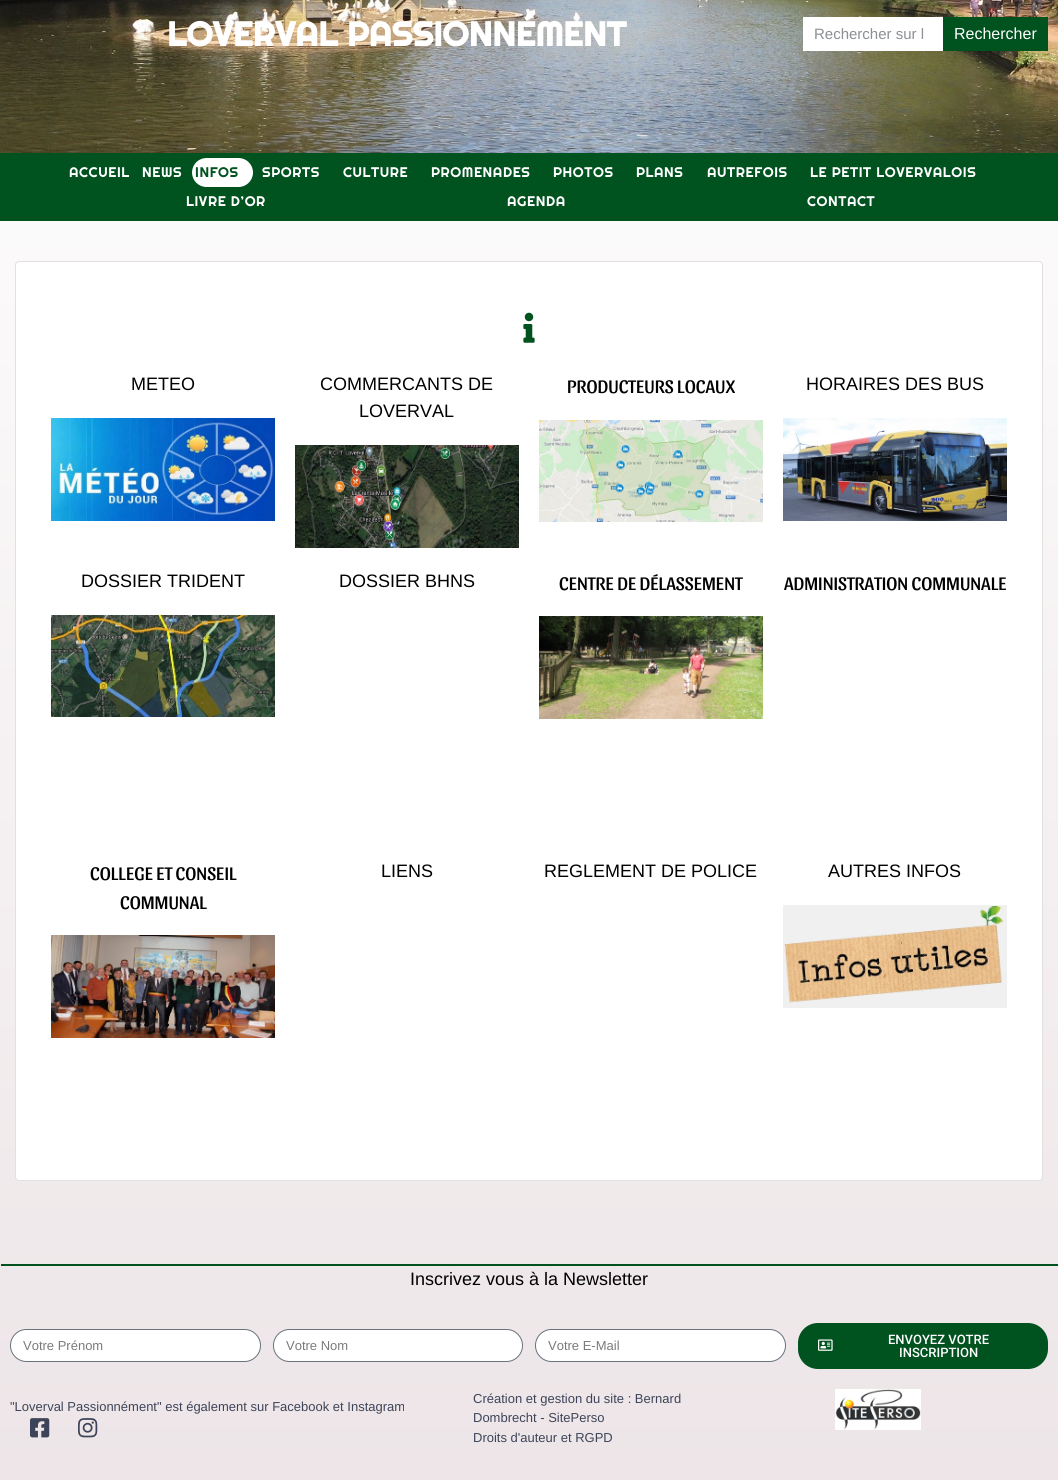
import math
import cairo


def use_color(cr, r, g, b):
  cr.set_source_rgb(r / 255, g / 255, b / 255)

def text(cr, x, y, s, family, size, color, bold=False, italic=False):
  cr.select_font_face(family, cairo.FONT_SLANT_ITALIC if italic else cairo.FONT_SLANT_NORMAL, cairo.FONT_WEIGHT_BOLD if bold else cairo.FONT_WEIGHT_NORMAL)
  cr.set_font_size(size)
  use_color(cr, *color)
  cr.move_to(x, y)
  cr.show_text(s)

def spaced_text(cr, x, y, s, letter, word):
  cr.move_to(x, y)
  for ch in s:
    cr.show_text(ch)
    cr.rel_move_to(letter + word * (ch == ' '), 0)

def box(cr, x, y, w, h, *color):
  use_color(cr, *color)
  cr.rectangle(x, y, w, h)
  cr.fill()

def round_rect(cr, x, y, w, h, r):
  cr.new_sub_path()
  for i, (u, v) in enumerate([(x + w - r, y + h - r), (x + r, y + h - r), (x + r, y + r), (x + w - r, y + r)]):
    cr.arc(u, v, r, i * math.pi / 2, (i + 1) * math.pi / 2)
  cr.close_path()

def picture(cr, path, x, y, w, h):
  cr.save()
  cr.set_source_surface(cairo.ImageSurface.create_from_png(path), x, y)
  cr.rectangle(x, y, w, h)
  cr.fill()
  cr.restore()

def draw(cr):
  use_color(cr, 255, 255, 255)
  cr.paint()
  gradient = cairo.LinearGradient(529, -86, 529, 1480)
  gradient.add_color_stop_rgba(0, 1, 1, 1, 1)
  gradient.add_color_stop_rgba(1, 0.929, 0.898, 0.906, 1)
  cr.set_source(gradient)
  cr.rectangle(0, 221, 1058, 1259)
  cr.fill()
  picture(cr, "img_01.png", 0, 0, 1058, 153)
  box(cr, 803, 17, 140, 34, 255, 255, 255)
  box(cr, 943, 17, 105, 34, 0, 82, 31)
  box(cr, 0, 153, 1058, 68, 0, 82, 31)
  use_color(cr, 255, 255, 255)
  round_rect(cr, 192, 158, 61, 29, 14.5)
  cr.fill()
  round_rect(cr, 15, 261, 1028, 920, 4)
  cr.fill()
  round_rect(cr, 15.5, 261.5, 1027, 919, 3.5)
  cr.set_source_rgba(0, 0, 0, 0.12)
  cr.set_line_width(1)
  cr.stroke()
  picture(cr, "img_02.png", 523, 312, 12, 31)
  picture(cr, "img_03.png", 51, 418, 224, 103)
  picture(cr, "img_04.png", 295, 445, 224, 103)
  picture(cr, "img_05.png", 539, 420, 224, 102)
  picture(cr, "img_06.png", 783, 418, 224, 103)
  picture(cr, "img_07.png", 51, 615, 224, 102)
  picture(cr, "img_08.png", 539, 616, 224, 103)
  picture(cr, "img_09.png", 51, 935, 224, 103)
  picture(cr, "img_10.png", 783, 905, 224, 103)
  box(cr, 1, 1264, 1057, 2, 0, 82, 31)
  use_color(cr, 255, 255, 255)
  round_rect(cr, 10.5, 1329.5, 250, 32, 16)
  cr.fill_preserve()
  use_color(cr, 105, 114, 125)
  cr.stroke()
  use_color(cr, 255, 255, 255)
  round_rect(cr, 273.5, 1329.5, 249, 32, 16)
  cr.fill_preserve()
  use_color(cr, 105, 114, 125)
  cr.stroke()
  use_color(cr, 255, 255, 255)
  round_rect(cr, 535.5, 1329.5, 250, 32, 16)
  cr.fill_preserve()
  use_color(cr, 105, 114, 125)
  cr.stroke()
  use_color(cr, 0, 82, 31)
  round_rect(cr, 798, 1323, 250, 46, 20)
  cr.fill()
  picture(cr, "img_11.png", 818, 1339, 15, 12)
  picture(cr, "img_12.png", 30, 1418, 20, 20)
  picture(cr, "img_13.png", 78, 1418, 20, 20)
  picture(cr, "img_14.png", 835, 1389, 86, 41)
  text(cr, 167, 46, "LOVERVAL PASSIONNÉMENT", "Righteous", 34, (255, 255, 255), bold=True)
  text(cr, 814, 39, "Rechercher sur l", "Liberation Sans", 15, (140, 143, 147))
  text(cr, 954, 39, "Rechercher", "Liberation Sans", 16, (255, 255, 255))
  cr.select_font_face("Righteous")
  cr.set_font_size(14)
  spaced_text(cr, 69, 177, "ACCUEIL", 0.6, 0)
  spaced_text(cr, 142, 177, "NEWS", 0.6, 0)
  use_color(cr, 0, 82, 31)
  spaced_text(cr, 195, 177, "INFOS", 0.6, 0)
  use_color(cr, 255, 255, 255)
  spaced_text(cr, 262, 177, "SPORTS", 0.6, 0)
  spaced_text(cr, 343, 177, "CULTURE", 0.6, 0)
  spaced_text(cr, 431, 177, "PROMENADES", 0.6, 0)
  spaced_text(cr, 553, 177, "PHOTOS", 0.6, 0)
  spaced_text(cr, 636, 177, "PLANS", 0.6, 0)
  spaced_text(cr, 707, 177, "AUTREFOIS", 0.6, 0)
  spaced_text(cr, 810, 177, "LE PETIT LOVERVALOIS", 0.6, 0)
  spaced_text(cr, 186, 206, "LIVRE D’OR", 0.6, 0)
  spaced_text(cr, 507, 206, "AGENDA", 0.6, 0)
  spaced_text(cr, 807, 206, "CONTACT", 0.6, 0)
  text(cr, 131, 390, "METEO", "Liberation Sans", 18, (0, 0, 0))
  text(cr, 320, 390, "COMMERCANTS DE", "Liberation Sans", 18, (0, 0, 0))
  text(cr, 359, 417, "LOVERVAL", "Liberation Sans", 18, (0, 0, 0))
  text(cr, 567, 393, "PRODUCTEURS LOCAUX", "Sansita", 19, (0, 0, 0))
  text(cr, 806, 390, "HORAIRES DES BUS", "Liberation Sans", 18, (0, 0, 0))
  text(cr, 81, 587, "DOSSIER TRIDENT", "Liberation Sans", 18, (0, 0, 0))
  text(cr, 339, 587, "DOSSIER BHNS", "Liberation Sans", 18, (0, 0, 0))
  text(cr, 559, 590, "CENTRE DE DÉLASSEMENT", "Sansita", 19, (0, 0, 0))
  text(cr, 784, 590, "ADMINISTRATION COMMUNALE", "Sansita", 19, (0, 0, 0))
  text(cr, 90, 880, "COLLEGE ET CONSEIL", "Sansita", 19, (0, 0, 0))
  text(cr, 120, 909, "COMMUNAL", "Sansita", 19, (0, 0, 0))
  text(cr, 381, 877, "LIENS", "Liberation Sans", 18, (0, 0, 0))
  text(cr, 544, 877, "REGLEMENT DE POLICE", "Liberation Sans", 18, (0, 0, 0))
  text(cr, 828, 877, "AUTRES INFOS", "Liberation Sans", 18, (0, 0, 0))
  text(cr, 410, 1285, "Inscrivez vous à la Newsletter", "Liberation Sans", 18, (0, 0, 0))
  text(cr, 23, 1350, "Votre Prénom", "Liberation Sans", 13, (121, 122, 124))
  text(cr, 286, 1350, "Votre Nom", "Liberation Sans", 13, (121, 122, 124))
  text(cr, 548, 1350, "Votre E-Mail", "Liberation Sans", 13, (121, 122, 124))
  text(cr, 888, 1344, "ENVOYEZ VOTRE", "Roboto Medium", 13, (255, 255, 255))
  text(cr, 899, 1357, "INSCRIPTION", "Roboto Medium", 13, (255, 255, 255))
  text(cr, 10, 1411, "\"Loverval Passionnément\" est également sur Facebook et Instagram", "Liberation Sans", 13, (61, 68, 89))
  text(cr, 473, 1403, "Création et gestion du site : Bernard", "Liberation Sans", 13, (61, 68, 89))
  text(cr, 473, 1422, "Dombrecht - SitePerso", "Liberation Sans", 13, (61, 68, 89))
  text(cr, 473, 1442, "Droits d'auteur et RGPD", "Liberation Sans", 13, (61, 68, 89))


surface = cairo.ImageSurface(cairo.FORMAT_RGB24, 1058, 1480)
cr = cairo.Context(surface)
options = cairo.FontOptions()
options.set_hint_metrics(cairo.HINT_METRICS_OFF)
options.set_hint_style(cairo.HINT_STYLE_NONE)
cr.set_font_options(options)
cr.set_miter_limit(4)
draw(cr)
surface.write_to_png("out.png")
